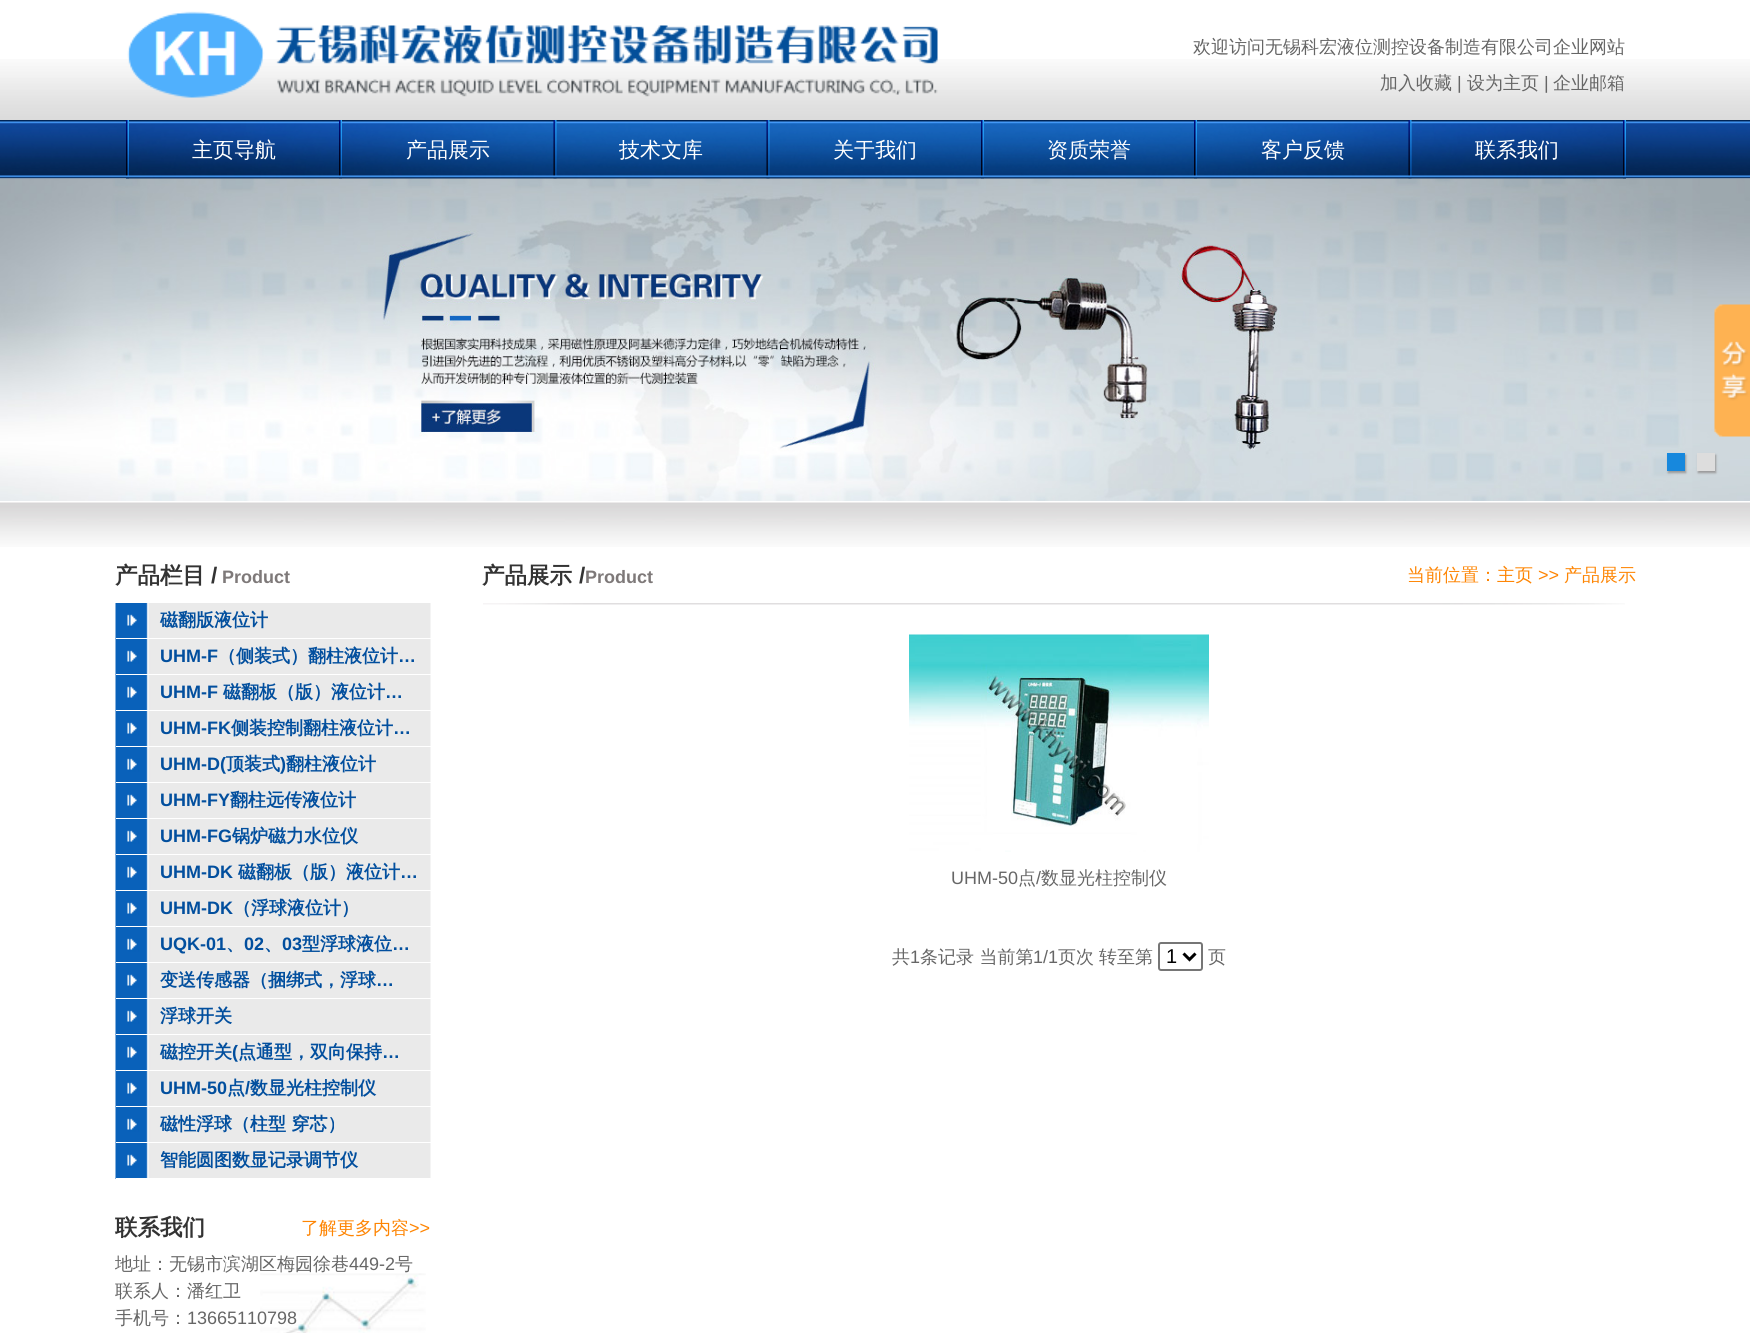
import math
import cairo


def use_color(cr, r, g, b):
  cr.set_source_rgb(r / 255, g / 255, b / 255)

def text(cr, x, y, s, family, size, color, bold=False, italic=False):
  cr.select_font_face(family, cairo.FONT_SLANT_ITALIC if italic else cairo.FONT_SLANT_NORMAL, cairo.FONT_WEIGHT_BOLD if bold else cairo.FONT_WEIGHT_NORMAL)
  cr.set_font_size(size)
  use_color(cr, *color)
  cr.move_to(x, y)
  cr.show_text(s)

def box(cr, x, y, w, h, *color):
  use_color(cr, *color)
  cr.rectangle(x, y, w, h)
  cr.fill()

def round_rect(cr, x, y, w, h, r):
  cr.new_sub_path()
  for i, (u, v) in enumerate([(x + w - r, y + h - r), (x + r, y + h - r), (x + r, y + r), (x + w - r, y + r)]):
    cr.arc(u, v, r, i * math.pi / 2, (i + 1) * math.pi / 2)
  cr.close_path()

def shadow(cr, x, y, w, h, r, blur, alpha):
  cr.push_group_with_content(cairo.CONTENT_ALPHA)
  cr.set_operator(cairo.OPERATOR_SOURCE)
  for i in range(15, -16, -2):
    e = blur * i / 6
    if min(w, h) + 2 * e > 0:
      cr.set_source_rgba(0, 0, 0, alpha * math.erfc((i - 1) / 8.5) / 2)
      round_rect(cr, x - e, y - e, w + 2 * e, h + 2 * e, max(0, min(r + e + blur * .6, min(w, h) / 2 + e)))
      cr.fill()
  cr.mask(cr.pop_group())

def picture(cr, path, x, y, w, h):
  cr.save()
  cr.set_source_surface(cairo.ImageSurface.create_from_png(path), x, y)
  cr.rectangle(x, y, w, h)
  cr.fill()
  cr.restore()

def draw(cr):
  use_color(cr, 255, 255, 255)
  cr.paint()
  picture(cr, "img_01.png", 0, 59, 1750, 61)
  picture(cr, "img_02.png", 127, 11, 811, 87)
  picture(cr, "img_03.png", 0, 120, 1750, 59)
  picture(cr, "img_04.png", 126, 122, 1500, 57)
  picture(cr, "img_05.png", 126, 120, 3, 59)
  picture(cr, "img_06.png", 339, 120, 3, 59)
  picture(cr, "img_07.png", 553, 120, 4, 59)
  picture(cr, "img_08.png", 766, 120, 4, 59)
  picture(cr, "img_05.png", 981, 120, 3, 59)
  picture(cr, "img_09.png", 1194, 120, 3, 59)
  picture(cr, "img_10.png", 1408, 120, 4, 59)
  picture(cr, "img_05.png", 1623, 120, 3, 59)
  picture(cr, "img_11.png", 0, 178, 1750, 323)
  use_color(cr, 153, 153, 153)
  shadow(cr, 1668, 455, 18, 18, 0, 1, 1)
  box(cr, 1667, 453, 18, 18, 23, 136, 221)
  use_color(cr, 153, 153, 153)
  shadow(cr, 1698, 455, 18, 18, 0, 1, 1)
  box(cr, 1697, 453, 18, 18, 221, 221, 221)
  picture(cr, "img_12.png", 1714, 304, 36, 133)
  picture(cr, "img_13.png", 0, 502, 1750, 45)
  picture(cr, "img_14.png", 115, 603, 316, 36)
  box(cr, 116, 638, 315, 1, 255, 255, 255)
  picture(cr, "img_14.png", 115, 639, 316, 36)
  box(cr, 116, 674, 315, 1, 255, 255, 255)
  picture(cr, "img_14.png", 115, 675, 316, 36)
  box(cr, 116, 710, 315, 1, 255, 255, 255)
  picture(cr, "img_14.png", 115, 711, 316, 36)
  box(cr, 116, 746, 315, 1, 255, 255, 255)
  picture(cr, "img_14.png", 115, 747, 316, 36)
  box(cr, 116, 782, 315, 1, 255, 255, 255)
  picture(cr, "img_14.png", 115, 783, 316, 36)
  box(cr, 116, 818, 315, 1, 255, 255, 255)
  picture(cr, "img_14.png", 115, 819, 316, 36)
  box(cr, 116, 854, 315, 1, 255, 255, 255)
  picture(cr, "img_14.png", 115, 855, 316, 36)
  box(cr, 116, 890, 315, 1, 255, 255, 255)
  picture(cr, "img_14.png", 115, 891, 316, 36)
  box(cr, 116, 926, 315, 1, 255, 255, 255)
  picture(cr, "img_14.png", 115, 927, 316, 36)
  box(cr, 116, 962, 315, 1, 255, 255, 255)
  picture(cr, "img_14.png", 115, 963, 316, 36)
  box(cr, 116, 998, 315, 1, 255, 255, 255)
  picture(cr, "img_14.png", 115, 999, 316, 36)
  box(cr, 116, 1034, 315, 1, 255, 255, 255)
  picture(cr, "img_14.png", 115, 1035, 316, 36)
  box(cr, 116, 1070, 315, 1, 255, 255, 255)
  picture(cr, "img_14.png", 115, 1071, 316, 36)
  box(cr, 116, 1106, 315, 1, 255, 255, 255)
  picture(cr, "img_14.png", 115, 1107, 316, 36)
  box(cr, 116, 1142, 315, 1, 255, 255, 255)
  picture(cr, "img_14.png", 115, 1143, 316, 36)
  box(cr, 116, 1178, 315, 1, 255, 255, 255)
  picture(cr, "img_15.png", 260, 1273, 166, 60)
  picture(cr, "img_16.png", 483, 603, 1142, 2)
  picture(cr, "img_17.png", 909, 634, 300, 218)
  round_rect(cr, 1159, 943, 43, 27, 2)
  use_color(cr, 118, 118, 118)
  cr.stroke()
  cr.new_path()
  cr.move_to(1183.5, 953.5)
  cr.line_to(1189.5, 959.5)
  cr.line_to(1195.5, 953.5)
  use_color(cr, 0, 0, 0)
  cr.set_line_width(3)
  cr.stroke()
  text(cr, 1193, 53, "欢迎访问无锡科宏液位测控设备制造有限公司企业网站", "WenQuanYi Zen Hei Medium", 18, (102, 102, 102))
  text(cr, 1380, 89, "加入收藏", "WenQuanYi Zen Hei Medium", 18, (102, 102, 102))
  text(cr, 1457, 89, "|", "Liberation Sans", 18, (102, 102, 102))
  text(cr, 1467, 89, "设为主页", "WenQuanYi Zen Hei Medium", 18, (102, 102, 102))
  text(cr, 1544, 89, "|", "Liberation Sans", 18, (102, 102, 102))
  text(cr, 1553, 89, "企业邮箱", "WenQuanYi Zen Hei Medium", 18, (102, 102, 102))
  text(cr, 192, 157, "主页导航", "WenQuanYi Zen Hei Medium", 21, (255, 255, 255))
  text(cr, 406, 157, "产品展示", "WenQuanYi Zen Hei Medium", 21, (255, 255, 255))
  text(cr, 619, 157, "技术文库", "WenQuanYi Zen Hei Medium", 21, (255, 255, 255))
  text(cr, 833, 157, "关于我们", "WenQuanYi Zen Hei Medium", 21, (255, 255, 255))
  text(cr, 1047, 157, "资质荣誉", "WenQuanYi Zen Hei Medium", 21, (255, 255, 255))
  text(cr, 1261, 157, "客户反馈", "WenQuanYi Zen Hei Medium", 21, (255, 255, 255))
  text(cr, 1475, 157, "联系我们", "WenQuanYi Zen Hei Medium", 21, (255, 255, 255))
  text(cr, 115, 583, "产品栏目", "WenQuanYi Zen Hei", 22.5, (51, 51, 51), bold=True)
  text(cr, 211, 583, "/", "Liberation Sans", 22.5, (51, 51, 51), bold=True)
  text(cr, 222, 583, "Product", "Liberation Sans", 18, (126, 121, 121), bold=True)
  text(cr, 160, 626, "磁翻版液位计", "WenQuanYi Zen Hei", 18, (2, 79, 158), bold=True)
  text(cr, 160, 662, "UHM-F", "Liberation Sans", 18, (2, 79, 158), bold=True)
  text(cr, 218, 662, "（侧装式）翻柱液位计", "WenQuanYi Zen Hei", 18, (2, 79, 158), bold=True)
  text(cr, 398, 662, "…", "Liberation Sans", 18, (2, 79, 158), bold=True)
  text(cr, 160, 698, "UHM-F", "Liberation Sans", 18, (2, 79, 158), bold=True)
  text(cr, 223, 698, "磁翻板（版）液位计", "WenQuanYi Zen Hei", 18, (2, 79, 158), bold=True)
  text(cr, 385, 698, "…", "Liberation Sans", 18, (2, 79, 158), bold=True)
  text(cr, 160, 734, "UHM-FK", "Liberation Sans", 18, (2, 79, 158), bold=True)
  text(cr, 231, 734, "侧装控制翻柱液位计", "WenQuanYi Zen Hei", 18, (2, 79, 158), bold=True)
  text(cr, 393, 734, "…", "Liberation Sans", 18, (2, 79, 158), bold=True)
  text(cr, 160, 770, "UHM-D(", "Liberation Sans", 18, (2, 79, 158), bold=True)
  text(cr, 226, 770, "顶装式", "WenQuanYi Zen Hei", 18, (2, 79, 158), bold=True)
  text(cr, 280, 770, ")", "Liberation Sans", 18, (2, 79, 158), bold=True)
  text(cr, 286, 770, "翻柱液位计", "WenQuanYi Zen Hei", 18, (2, 79, 158), bold=True)
  text(cr, 160, 806, "UHM-FY", "Liberation Sans", 18, (2, 79, 158), bold=True)
  text(cr, 230, 806, "翻柱远传液位计", "WenQuanYi Zen Hei", 18, (2, 79, 158), bold=True)
  text(cr, 160, 842, "UHM-FG", "Liberation Sans", 18, (2, 79, 158), bold=True)
  text(cr, 232, 842, "锅炉磁力水位仪", "WenQuanYi Zen Hei", 18, (2, 79, 158), bold=True)
  text(cr, 160, 878, "UHM-DK", "Liberation Sans", 18, (2, 79, 158), bold=True)
  text(cr, 238, 878, "磁翻板（版）液位计", "WenQuanYi Zen Hei", 18, (2, 79, 158), bold=True)
  text(cr, 400, 878, "…", "Liberation Sans", 18, (2, 79, 158), bold=True)
  text(cr, 160, 914, "UHM-DK", "Liberation Sans", 18, (2, 79, 158), bold=True)
  text(cr, 233, 914, "（浮球液位计）", "WenQuanYi Zen Hei", 18, (2, 79, 158), bold=True)
  text(cr, 160, 950, "UQK-01", "Liberation Sans", 18, (2, 79, 158), bold=True)
  text(cr, 226, 950, "、", "WenQuanYi Zen Hei", 18, (2, 79, 158), bold=True)
  text(cr, 244, 950, "02", "Liberation Sans", 18, (2, 79, 158), bold=True)
  text(cr, 264, 950, "、", "WenQuanYi Zen Hei", 18, (2, 79, 158), bold=True)
  text(cr, 282, 950, "03", "Liberation Sans", 18, (2, 79, 158), bold=True)
  text(cr, 302, 950, "型浮球液位", "WenQuanYi Zen Hei", 18, (2, 79, 158), bold=True)
  text(cr, 392, 950, "…", "Liberation Sans", 18, (2, 79, 158), bold=True)
  text(cr, 160, 986, "变送传感器（捆绑式，浮球", "WenQuanYi Zen Hei", 18, (2, 79, 158), bold=True)
  text(cr, 376, 986, "…", "Liberation Sans", 18, (2, 79, 158), bold=True)
  text(cr, 160, 1022, "浮球开关", "WenQuanYi Zen Hei", 18, (2, 79, 158), bold=True)
  text(cr, 160, 1058, "磁控开关", "WenQuanYi Zen Hei", 18, (2, 79, 158), bold=True)
  text(cr, 232, 1058, "(", "Liberation Sans", 18, (2, 79, 158), bold=True)
  text(cr, 238, 1058, "点通型，双向保持", "WenQuanYi Zen Hei", 18, (2, 79, 158), bold=True)
  text(cr, 382, 1058, "…", "Liberation Sans", 18, (2, 79, 158), bold=True)
  text(cr, 160, 1094, "UHM-50", "Liberation Sans", 18, (2, 79, 158), bold=True)
  text(cr, 227, 1094, "点", "WenQuanYi Zen Hei", 18, (2, 79, 158), bold=True)
  text(cr, 245, 1094, "/", "Liberation Sans", 18, (2, 79, 158), bold=True)
  text(cr, 250, 1094, "数显光柱控制仪", "WenQuanYi Zen Hei", 18, (2, 79, 158), bold=True)
  text(cr, 160, 1130, "磁性浮球（柱型 穿芯）", "WenQuanYi Zen Hei", 18, (2, 79, 158), bold=True)
  text(cr, 160, 1166, "智能圆图数显记录调节仪", "WenQuanYi Zen Hei", 18, (2, 79, 158), bold=True)
  text(cr, 115, 1235, "联系我们", "WenQuanYi Zen Hei", 22.5, (51, 51, 51), bold=True)
  text(cr, 301, 1234, "了解更多内容", "WenQuanYi Zen Hei Medium", 18, (254, 133, 3))
  text(cr, 409, 1234, ">>", "Liberation Sans", 18, (254, 133, 3))
  text(cr, 115, 1270, "地址：无锡市滨湖区梅园徐巷", "WenQuanYi Zen Hei Medium", 18, (102, 102, 102))
  text(cr, 349, 1270, "449-2", "Liberation Sans", 18, (102, 102, 102))
  text(cr, 395, 1270, "号", "WenQuanYi Zen Hei Medium", 18, (102, 102, 102))
  text(cr, 115, 1297, "联系人：潘红卫", "WenQuanYi Zen Hei Medium", 18, (102, 102, 102))
  text(cr, 115, 1324, "手机号：", "WenQuanYi Zen Hei Medium", 18, (102, 102, 102))
  text(cr, 187, 1324, "13665110798", "Liberation Sans", 18, (102, 102, 102))
  text(cr, 482, 583, "产品展示", "WenQuanYi Zen Hei", 22.5, (51, 51, 51), bold=True)
  text(cr, 579, 583, "/", "Liberation Sans", 22.5, (51, 51, 51), bold=True)
  text(cr, 585, 583, "Product", "Liberation Sans", 18, (126, 121, 121), bold=True)
  text(cr, 1407, 581, "当前位置：主页", "WenQuanYi Zen Hei Medium", 18, (254, 133, 3))
  text(cr, 1538, 581, ">>", "Liberation Sans", 18, (254, 133, 3))
  text(cr, 1564, 581, "产品展示", "WenQuanYi Zen Hei Medium", 18, (254, 133, 3))
  text(cr, 951, 884, "UHM-50", "Liberation Sans", 18, (102, 102, 102))
  text(cr, 1018, 884, "点", "WenQuanYi Zen Hei Medium", 18, (102, 102, 102))
  text(cr, 1036, 884, "/", "Liberation Sans", 18, (102, 102, 102))
  text(cr, 1041, 884, "数显光柱控制仪", "WenQuanYi Zen Hei Medium", 18, (102, 102, 102))
  text(cr, 892, 963, "共", "WenQuanYi Zen Hei Medium", 18, (102, 102, 102))
  text(cr, 910, 963, "1", "Liberation Sans", 18, (102, 102, 102))
  text(cr, 920, 963, "条记录 当前第", "WenQuanYi Zen Hei Medium", 18, (102, 102, 102))
  text(cr, 1033, 963, "1/1", "Liberation Sans", 18, (102, 102, 102))
  text(cr, 1058, 963, "页次", "WenQuanYi Zen Hei Medium", 18, (102, 102, 102))
  text(cr, 1099, 963, "转至第", "WenQuanYi Zen Hei Medium", 18, (102, 102, 102))
  text(cr, 1166, 963, "1", "Liberation Sans", 20, (0, 0, 0))
  text(cr, 1208, 963, "页", "WenQuanYi Zen Hei Medium", 18, (102, 102, 102))


surface = cairo.ImageSurface(cairo.FORMAT_RGB24, 1750, 1333)
cr = cairo.Context(surface)
options = cairo.FontOptions()
options.set_hint_metrics(cairo.HINT_METRICS_OFF)
options.set_hint_style(cairo.HINT_STYLE_NONE)
cr.set_font_options(options)
cr.set_miter_limit(4)
draw(cr)
surface.write_to_png("out.png")
